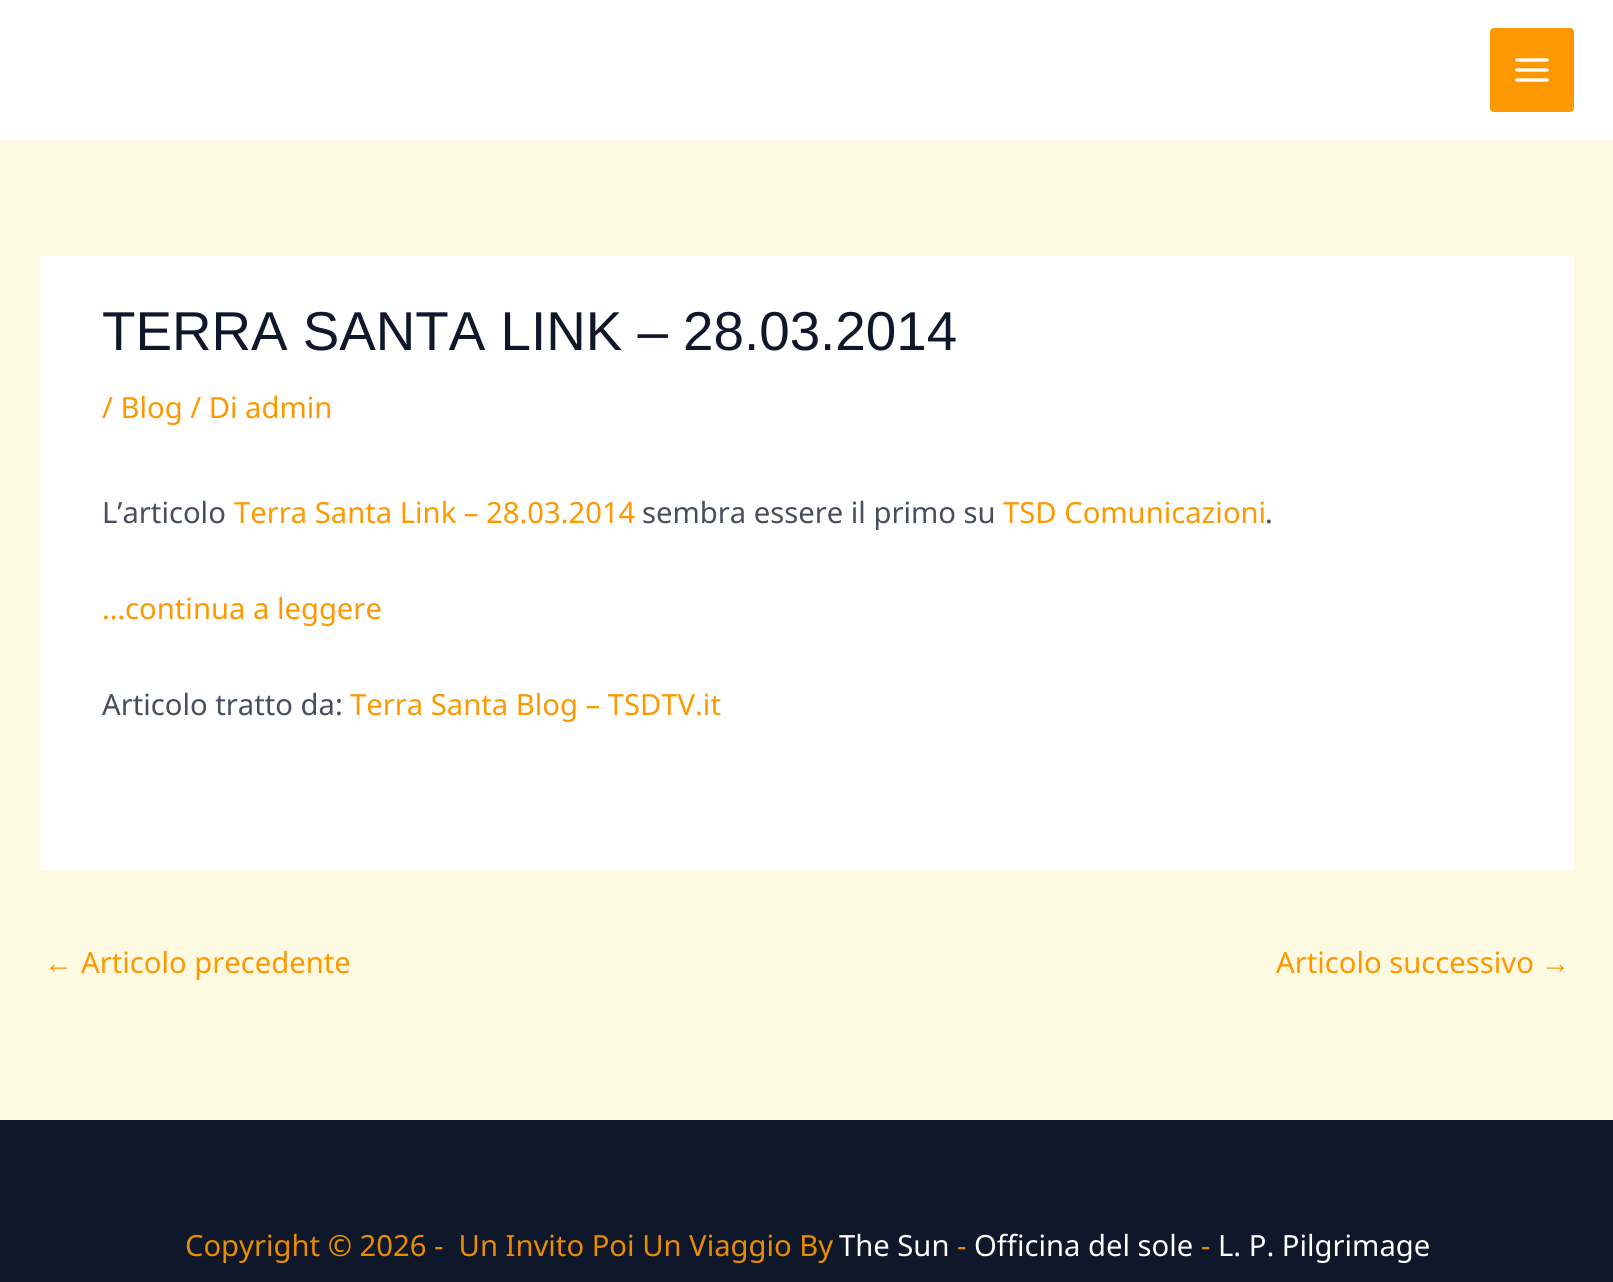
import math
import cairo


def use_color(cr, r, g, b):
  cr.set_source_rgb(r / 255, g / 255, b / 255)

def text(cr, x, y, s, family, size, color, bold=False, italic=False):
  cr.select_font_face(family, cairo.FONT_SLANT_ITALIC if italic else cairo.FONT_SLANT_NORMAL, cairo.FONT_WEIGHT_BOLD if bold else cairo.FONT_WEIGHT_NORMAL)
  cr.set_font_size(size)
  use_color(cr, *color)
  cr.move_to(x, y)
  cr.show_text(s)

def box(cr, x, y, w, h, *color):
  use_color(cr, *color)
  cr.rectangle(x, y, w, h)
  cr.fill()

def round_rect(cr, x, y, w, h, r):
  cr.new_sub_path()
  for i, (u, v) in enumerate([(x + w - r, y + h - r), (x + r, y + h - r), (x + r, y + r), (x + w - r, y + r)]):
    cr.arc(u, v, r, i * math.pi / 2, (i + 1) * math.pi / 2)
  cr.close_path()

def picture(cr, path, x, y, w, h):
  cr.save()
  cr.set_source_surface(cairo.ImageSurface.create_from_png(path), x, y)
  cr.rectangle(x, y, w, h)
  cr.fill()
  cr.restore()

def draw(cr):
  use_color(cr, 254, 249, 225)
  cr.paint()
  box(cr, 0, 0, 1613, 140, 255, 255, 255)
  use_color(cr, 253, 152, 0)
  round_rect(cr, 1490, 28, 84, 84, 4)
  cr.fill()
  picture(cr, "img_01.png", 1515, 58, 34, 24)
  box(cr, 40, 256, 1534, 614, 255, 255, 255)
  box(cr, 0, 1120, 1613, 162, 15, 23, 42)
  text(cr, 102, 350, "TERRA SANTA LINK – 28.03.2014", "Liberation Sans", 54.75, (15, 23, 42))
  text(cr, 102, 418, "/ Blog / Di admin", "Noto Sans", 29.2, (253, 152, 0))
  text(cr, 102, 523, "L’articolo", "Noto Sans", 29.2, (69, 79, 94))
  text(cr, 234, 523, "Terra Santa Link – 28.03.2014", "Noto Sans", 29.2, (253, 152, 0))
  text(cr, 642, 523, "sembra essere il primo su", "Noto Sans", 29.2, (69, 79, 94))
  text(cr, 1003, 523, "TSD Comunicazioni", "Noto Sans", 29.2, (253, 152, 0))
  text(cr, 1265, 523, ".", "Noto Sans", 29.2, (69, 79, 94))
  text(cr, 102, 619, "…continua a leggere", "Noto Sans", 29.2, (253, 152, 0))
  text(cr, 102, 715, "Articolo tratto da:", "Noto Sans", 29.2, (69, 79, 94))
  text(cr, 350, 715, "Terra Santa Blog – TSDTV.it", "Noto Sans", 29.2, (253, 152, 0))
  text(cr, 44, 973, "←", "Liberation Sans", 29.2, (253, 152, 0))
  text(cr, 81, 973, "Articolo precedente", "Noto Sans", 29.2, (253, 152, 0))
  text(cr, 1276, 973, "Articolo successivo", "Noto Sans", 29.2, (253, 152, 0))
  text(cr, 1541, 973, "→", "Liberation Sans", 29.2, (253, 152, 0))
  text(cr, 185, 1256, "Copyright © 2026 -  Un Invito Poi Un Viaggio By", "Noto Sans", 29.2, (233, 140, 0))
  text(cr, 839, 1256, "The Sun", "Noto Sans", 29.2, (255, 255, 255))
  text(cr, 957, 1256, "-", "Noto Sans", 29.2, (233, 140, 0))
  text(cr, 974, 1256, "Officina del sole", "Noto Sans", 29.2, (255, 255, 255))
  text(cr, 1201, 1256, "-", "Noto Sans", 29.2, (233, 140, 0))
  text(cr, 1218, 1256, "L. P. Pilgrimage", "Noto Sans", 29.2, (255, 255, 255))


surface = cairo.ImageSurface(cairo.FORMAT_RGB24, 1613, 1282)
cr = cairo.Context(surface)
options = cairo.FontOptions()
options.set_hint_metrics(cairo.HINT_METRICS_OFF)
options.set_hint_style(cairo.HINT_STYLE_NONE)
cr.set_font_options(options)
cr.set_miter_limit(4)
draw(cr)
surface.write_to_png("out.png")
